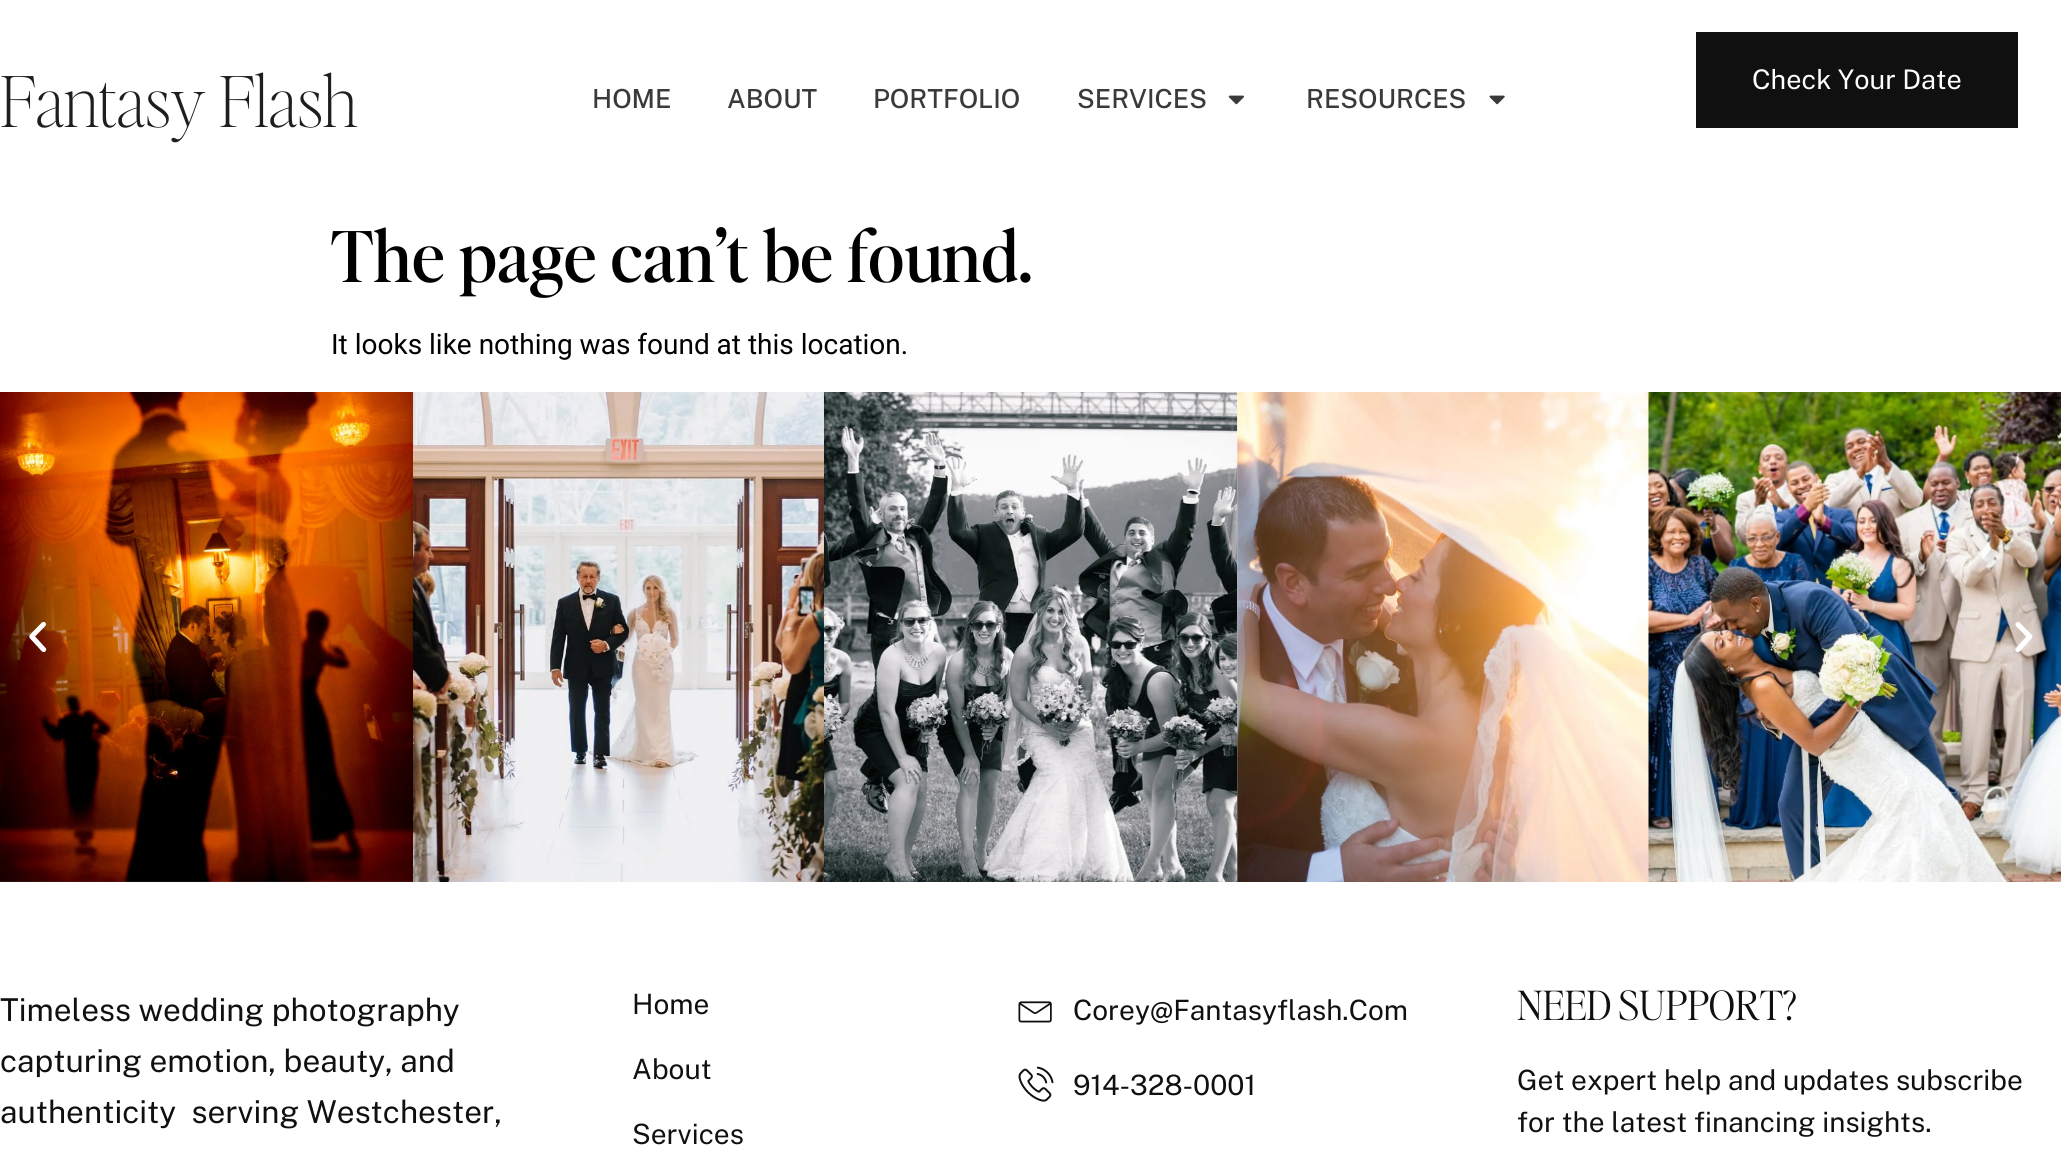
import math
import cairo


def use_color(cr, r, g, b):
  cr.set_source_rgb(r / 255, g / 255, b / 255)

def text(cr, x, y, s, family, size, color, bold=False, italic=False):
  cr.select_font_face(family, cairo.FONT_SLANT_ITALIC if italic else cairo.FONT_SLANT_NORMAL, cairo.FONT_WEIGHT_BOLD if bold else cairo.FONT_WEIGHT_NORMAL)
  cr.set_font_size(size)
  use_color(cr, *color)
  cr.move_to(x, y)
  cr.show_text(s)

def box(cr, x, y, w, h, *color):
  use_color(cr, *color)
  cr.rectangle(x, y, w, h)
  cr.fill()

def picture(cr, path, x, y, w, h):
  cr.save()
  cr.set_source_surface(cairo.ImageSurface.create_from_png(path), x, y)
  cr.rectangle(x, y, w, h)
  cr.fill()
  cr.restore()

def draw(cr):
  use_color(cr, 255, 255, 255)
  cr.paint()
  picture(cr, "img_01.png", 1228, 95, 16, 10)
  picture(cr, "img_02.png", 1489, 95, 16, 10)
  box(cr, 1696, 32, 322, 96, 16, 16, 16)
  picture(cr, "img_03.png", 0, 392, 413, 490)
  picture(cr, "img_04.png", 413, 392, 411, 490)
  picture(cr, "img_05.png", 824, 392, 414, 490)
  picture(cr, "img_06.png", 1237, 392, 412, 490)
  picture(cr, "img_07.png", 1648, 392, 413, 490)
  picture(cr, "img_08.png", 29, 621, 18, 32)
  picture(cr, "img_09.png", 2015, 622, 18, 30)
  picture(cr, "img_10.png", 1018, 1001, 34, 22)
  picture(cr, "img_11.png", 1018, 1066, 36, 36)
  text(cr, 0, 127, "Fantasy Flash", "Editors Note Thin", 70, (30, 30, 30))
  text(cr, 592, 108, "HOME", "Public Sans Medium", 26.25, (58, 58, 58))
  text(cr, 727, 108, "ABOUT", "Public Sans Medium", 26.25, (58, 58, 58))
  text(cr, 873, 108, "PORTFOLIO", "Public Sans Medium", 26.25, (58, 58, 58))
  text(cr, 1077, 108, "SERVICES", "Public Sans Medium", 26.25, (58, 58, 58))
  text(cr, 1306, 108, "RESOURCES", "Public Sans Medium", 26.25, (58, 58, 58))
  text(cr, 1752, 89, "Check Your Date", "Public Sans", 27, (255, 255, 255))
  text(cr, 331, 282, "The page can’t be found.", "Editors Note Medium", 70, (0, 0, 0))
  text(cr, 331, 354, "It looks like nothing was found at this location.", "Roboto", 28, (0, 0, 0))
  text(cr, 0, 1021, "Timeless wedding photography", "Public Sans", 31.5, (16, 16, 16))
  text(cr, 0, 1072, "capturing emotion, beauty, and", "Public Sans", 31.5, (16, 16, 16))
  text(cr, 0, 1123, "authenticity  serving Westchester,", "Public Sans", 31.5, (16, 16, 16))
  text(cr, 632, 1014, "Home", "Public Sans", 28, (16, 16, 16))
  text(cr, 632, 1079, "About", "Public Sans", 28, (16, 16, 16))
  text(cr, 632, 1144, "Services", "Public Sans", 28, (16, 16, 16))
  text(cr, 1073, 1020, "Corey@Fantasyflash.Com", "Public Sans", 28, (16, 16, 16))
  text(cr, 1073, 1095, "914-328-0001", "Public Sans", 28, (16, 16, 16))
  text(cr, 1517, 1020, "NEED SUPPORT?", "Editors Note Light", 40.25, (16, 16, 16))
  text(cr, 1517, 1090, "Get expert help and updates subscribe", "Public Sans", 28, (16, 16, 16))
  text(cr, 1517, 1132, "for the latest financing insights.", "Public Sans", 28, (16, 16, 16))


surface = cairo.ImageSurface(cairo.FORMAT_RGB24, 2061, 1150)
cr = cairo.Context(surface)
options = cairo.FontOptions()
options.set_hint_metrics(cairo.HINT_METRICS_OFF)
options.set_hint_style(cairo.HINT_STYLE_NONE)
cr.set_font_options(options)
cr.set_miter_limit(4)
draw(cr)
surface.write_to_png("out.png")
